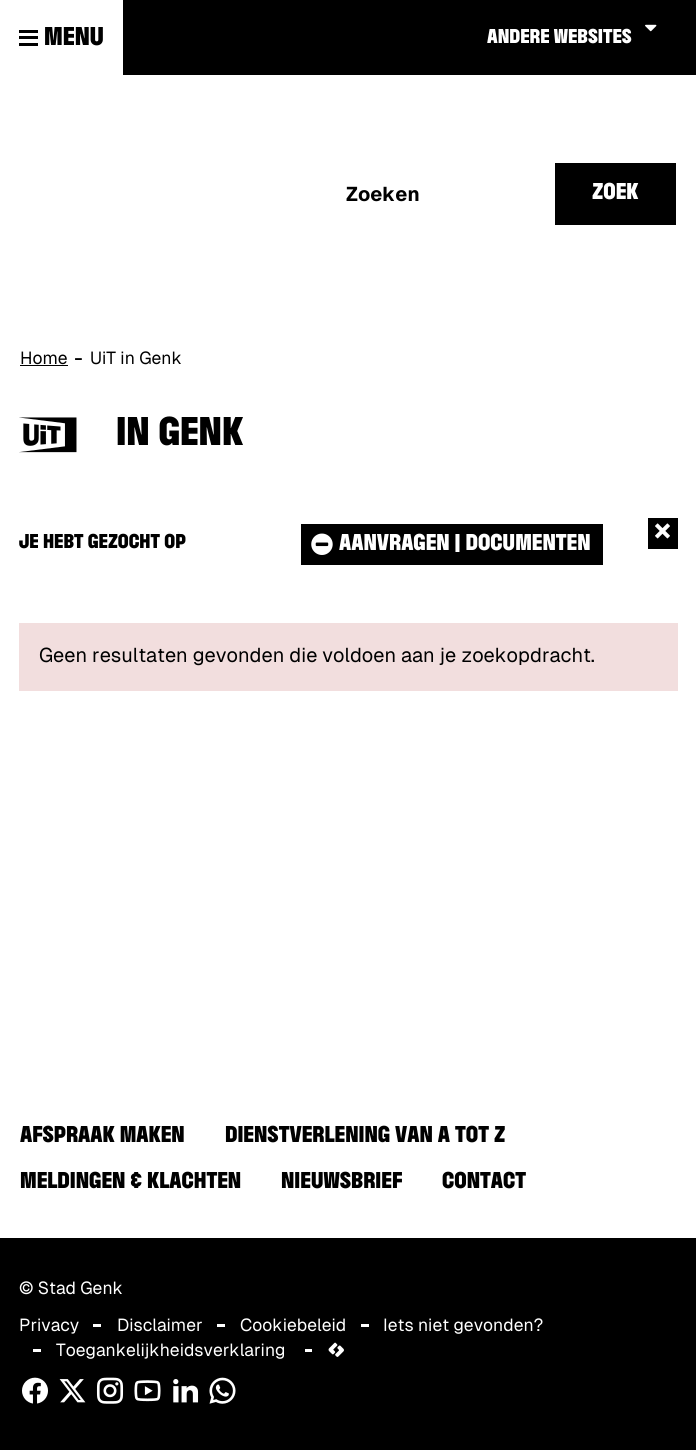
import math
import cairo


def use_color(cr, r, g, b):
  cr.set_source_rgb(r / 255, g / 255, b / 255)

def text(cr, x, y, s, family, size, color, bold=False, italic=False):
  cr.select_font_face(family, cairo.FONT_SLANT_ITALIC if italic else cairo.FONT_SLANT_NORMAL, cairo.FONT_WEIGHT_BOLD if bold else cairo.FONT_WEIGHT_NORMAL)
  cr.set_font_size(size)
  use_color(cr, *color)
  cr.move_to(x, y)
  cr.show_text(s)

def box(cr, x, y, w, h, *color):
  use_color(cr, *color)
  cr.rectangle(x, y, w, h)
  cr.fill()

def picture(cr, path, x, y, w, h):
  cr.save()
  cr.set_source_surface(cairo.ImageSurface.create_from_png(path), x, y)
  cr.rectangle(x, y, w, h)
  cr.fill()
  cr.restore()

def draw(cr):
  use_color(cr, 255, 255, 255)
  cr.paint()
  box(cr, 19, 36, 19, 3, 0, 0, 0)
  box(cr, 19, 30, 19, 3, 0, 0, 0)
  box(cr, 19, 43, 19, 3, 0, 0, 0)
  box(cr, 123, 0, 573, 75, 0, 0, 0)
  picture(cr, "img_01.png", 645, 24, 12, 8)
  box(cr, 555, 163, 121, 62, 0, 0, 0)
  box(cr, 20, 365, 48, 1, 0, 0, 0)
  picture(cr, "img_02.png", 75, 358, 7, 2)
  picture(cr, "img_03.png", 19, 417, 58, 36)
  box(cr, 301, 524, 302, 41, 0, 0, 0)
  picture(cr, "img_04.png", 311, 533, 22, 22)
  box(cr, 648, 518, 30, 31, 0, 0, 0)
  picture(cr, "img_05.png", 655, 523, 15, 16)
  box(cr, 19, 623, 659, 68, 242, 222, 222)
  box(cr, 0, 1238, 696, 212, 0, 0, 0)
  box(cr, 93, 1324, 8, 3, 255, 255, 255)
  box(cr, 217, 1324, 8, 3, 255, 255, 255)
  box(cr, 361, 1324, 8, 3, 255, 255, 255)
  box(cr, 33, 1349, 8, 3, 255, 255, 255)
  box(cr, 305, 1349, 7, 3, 255, 255, 255)
  picture(cr, "img_06.png", 328, 1342, 16, 15)
  picture(cr, "img_07.png", 22, 1377, 26, 27)
  picture(cr, "img_08.png", 59, 1379, 27, 24)
  picture(cr, "img_09.png", 96, 1377, 28, 27)
  picture(cr, "img_10.png", 134, 1380, 27, 22)
  picture(cr, "img_11.png", 173, 1379, 26, 24)
  picture(cr, "img_12.png", 209, 1377, 27, 27)
  text(cr, 44, 45, "MENU", "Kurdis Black", 22.5, (0, 0, 0))
  text(cr, 487, 43, "ANDERE WEBSITES", "Kurdis Black", 17.5, (255, 255, 255))
  text(cr, 346, 201, "Zoeken", "Geist", 20, (0, 0, 0), bold=True)
  text(cr, 592, 199, "ZOEK", "Kurdis Black", 20, (255, 255, 255))
  text(cr, 20, 364, "Home", "Geist", 17.5, (0, 0, 0))
  text(cr, 90, 364, "UiT in Genk", "Geist", 17.5, (0, 0, 0))
  text(cr, 116, 445, "IN GENK", "Kurdis Black", 35, (0, 0, 0))
  text(cr, 19, 548, "JE HEBT GEZOCHT OP", "Kurdis Black", 17.5, (0, 0, 0))
  text(cr, 339, 550, "AANVRAGEN | DOCUMENTEN", "Kurdis Black", 20, (255, 255, 255))
  text(cr, 39, 662, "Geen resultaten gevonden die voldoen aan je zoekopdracht.", "Geist", 20, (0, 0, 0))
  text(cr, 20, 1142, "AFSPRAAK MAKEN", "Kurdis Black", 20, (0, 0, 0))
  text(cr, 225, 1142, "DIENSTVERLENING VAN A TOT Z", "Kurdis Black", 20, (0, 0, 0))
  text(cr, 20, 1188, "MELDINGEN & KLACHTEN", "Kurdis Black", 20, (0, 0, 0))
  text(cr, 281, 1188, "NIEUWSBRIEF", "Kurdis Black", 20, (0, 0, 0))
  text(cr, 442, 1188, "CONTACT", "Kurdis Black", 20, (0, 0, 0))
  text(cr, 19, 1294, "© Stad Genk", "Geist", 17.5, (255, 255, 255))
  text(cr, 19, 1331, "Privacy", "Geist", 17.5, (255, 255, 255))
  text(cr, 117, 1331, "Disclaimer", "Geist", 17.5, (255, 255, 255))
  text(cr, 240, 1331, "Cookiebeleid", "Geist", 17.5, (255, 255, 255))
  text(cr, 383, 1331, "Iets niet gevonden?", "Geist", 17.5, (255, 255, 255))
  text(cr, 56, 1356, "Toegankelijkheidsverklaring", "Geist", 17.5, (255, 255, 255))


surface = cairo.ImageSurface(cairo.FORMAT_RGB24, 696, 1450)
cr = cairo.Context(surface)
options = cairo.FontOptions()
options.set_hint_metrics(cairo.HINT_METRICS_OFF)
options.set_hint_style(cairo.HINT_STYLE_NONE)
cr.set_font_options(options)
cr.set_miter_limit(4)
draw(cr)
surface.write_to_png("out.png")
